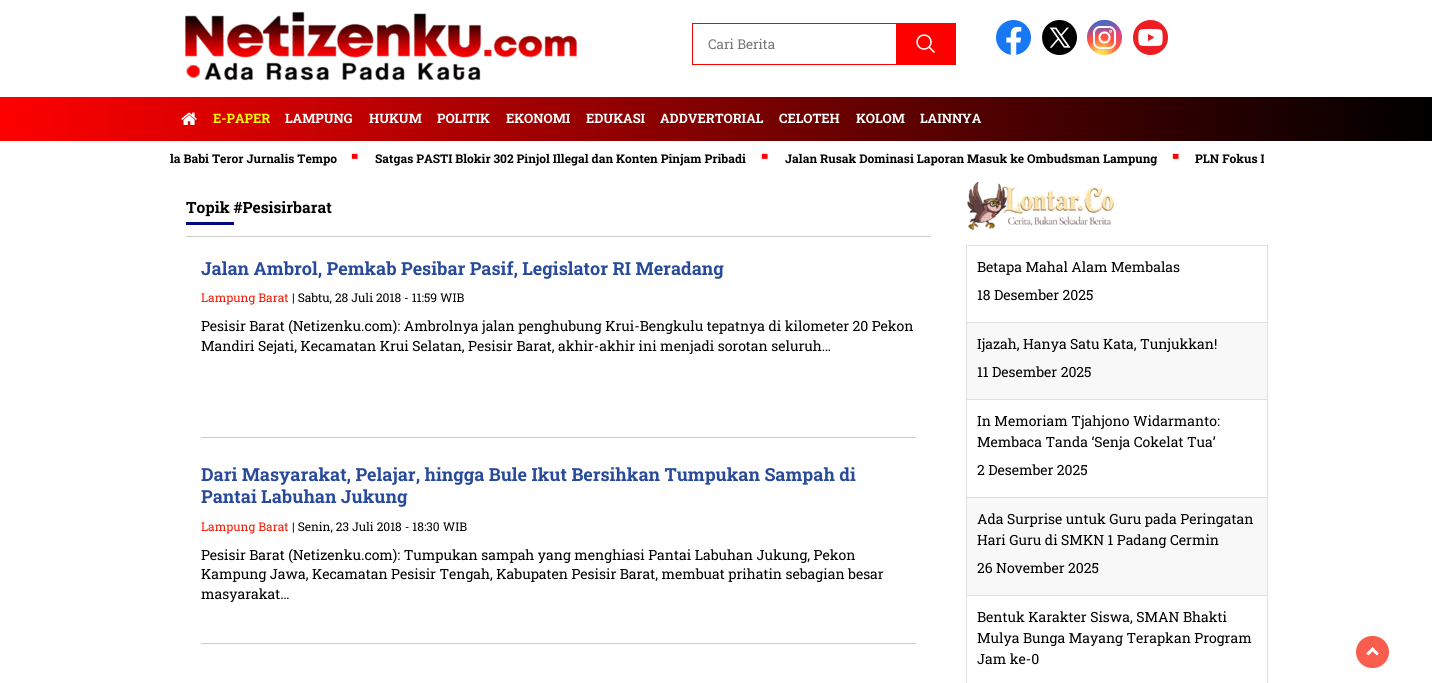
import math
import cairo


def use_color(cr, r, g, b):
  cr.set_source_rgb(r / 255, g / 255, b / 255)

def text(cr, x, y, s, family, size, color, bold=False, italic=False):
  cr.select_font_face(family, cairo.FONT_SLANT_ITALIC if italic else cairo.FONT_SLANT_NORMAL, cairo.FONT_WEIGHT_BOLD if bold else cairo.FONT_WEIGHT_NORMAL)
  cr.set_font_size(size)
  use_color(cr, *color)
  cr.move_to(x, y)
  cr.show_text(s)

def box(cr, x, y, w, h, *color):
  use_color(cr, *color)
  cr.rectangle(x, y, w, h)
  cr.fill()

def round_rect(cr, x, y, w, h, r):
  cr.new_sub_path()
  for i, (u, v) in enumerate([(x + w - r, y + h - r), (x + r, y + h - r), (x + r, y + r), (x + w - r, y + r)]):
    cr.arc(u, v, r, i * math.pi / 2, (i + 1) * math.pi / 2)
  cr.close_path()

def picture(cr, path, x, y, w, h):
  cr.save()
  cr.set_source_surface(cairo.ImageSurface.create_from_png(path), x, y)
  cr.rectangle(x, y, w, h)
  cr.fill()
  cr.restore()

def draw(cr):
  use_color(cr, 255, 255, 255)
  cr.paint()
  picture(cr, "img_01.png", 184, 11, 393, 70)
  cr.rectangle(692.5, 23.5, 204, 41)
  use_color(cr, 255, 0, 0)
  cr.set_line_width(1)
  cr.stroke()
  box(cr, 897, 23, 59, 42, 255, 0, 0)
  picture(cr, "img_02.png", 916, 34, 19, 19)
  picture(cr, "img_03.png", 996, 20, 35, 35)
  picture(cr, "img_04.png", 1042, 20, 35, 35)
  gradient = cairo.RadialGradient(1101, 55, 0, 1101, 55, 35)
  gradient.add_color_stop_rgba(0.1, 1, 0.867, 0.333, 1)
  gradient.add_color_stop_rgba(0.5, 1, 0.329, 0.243, 1)
  gradient.add_color_stop_rgba(1, 0.784, 0.216, 0.671, 1)
  cr.set_source(gradient)
  cr.arc(1104.5, 37.5, 17.5, 0, 2 * math.pi)
  cr.fill()
  gradient = cairo.LinearGradient(1087, 20, 1094, 55)
  gradient.add_color_stop_rgba(0.1, 0.216, 0.443, 0.784, 1)
  gradient.add_color_stop_rgba(0.5, 0.216, 0.443, 0.784, 0)
  cr.set_source(gradient)
  cr.arc(1104.5, 37.5, 17.5, 0, 2 * math.pi)
  cr.fill()
  round_rect(cr, 1094, 27, 21, 21, 6)
  use_color(cr, 255, 255, 255)
  cr.set_line_width(2)
  cr.stroke()
  cr.arc(1104.5, 37.5, 5, 0, 2 * math.pi)
  cr.set_line_width(2.1)
  cr.stroke()
  cr.arc(1110.7, 31.3, 0.4, 0, 2 * math.pi)
  cr.stroke()
  picture(cr, "img_05.png", 1133, 20, 35, 35)
  gradient = cairo.LinearGradient(0, 119, 1432, 119)
  gradient.add_color_stop_rgba(0, 1, 0, 0, 1)
  gradient.add_color_stop_rgba(1, 0, 0, 0, 1)
  cr.set_source(gradient)
  cr.rectangle(0, 97, 1432, 44)
  cr.fill()
  picture(cr, "img_06.png", 181, 112, 16, 13)
  box(cr, 186, 236, 745, 1, 204, 204, 204)
  box(cr, 186, 222, 48, 3, 1, 10, 128)
  box(cr, 201, 437, 715, 1, 204, 204, 204)
  box(cr, 201, 643, 715, 1, 204, 204, 204)
  picture(cr, "img_07.png", 967, 182, 148, 48)
  cr.rectangle(966.5, 245.5, 301, 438)
  use_color(cr, 223, 223, 223)
  cr.set_line_width(1)
  cr.stroke()
  box(cr, 967, 322, 300, 1, 223, 223, 223)
  box(cr, 967, 323, 300, 76, 248, 248, 248)
  box(cr, 967, 399, 300, 1, 223, 223, 223)
  box(cr, 967, 497, 300, 1, 223, 223, 223)
  box(cr, 967, 498, 300, 97, 248, 248, 248)
  box(cr, 967, 595, 300, 1, 223, 223, 223)
  use_color(cr, 248, 93, 77)
  round_rect(cr, 1356, 636, 33, 32, 16)
  cr.fill()
  use_color(cr, 255, 255, 255)
  cr.new_path()
  cr.move_to(1368.5, 655.5)
  cr.line_to(1366, 653.5)
  cr.line_to(1372.5, 647)
  cr.line_to(1374.5, 649.5)
  cr.close_path()
  cr.fill()
  cr.new_path()
  cr.move_to(1377, 655.5)
  cr.line_to(1370.5, 649.5)
  cr.line_to(1372.5, 647)
  cr.line_to(1379, 653.5)
  cr.close_path()
  cr.fill()
  text(cr, 708, 49, "Cari Berita", "Roboto Slab", 13.5, (117, 117, 117))
  text(cr, 213, 123, "E-PAPER", "Roboto Slab", 13, (255, 255, 0), bold=True)
  text(cr, 285, 123, "LAMPUNG", "Roboto Slab", 13, (255, 255, 255), bold=True)
  text(cr, 369, 123, "HUKUM", "Roboto Slab", 13, (255, 255, 255), bold=True)
  text(cr, 437, 123, "POLITIK", "Roboto Slab", 13, (255, 255, 255), bold=True)
  text(cr, 506, 123, "EKONOMI", "Roboto Slab", 13, (255, 255, 255), bold=True)
  text(cr, 586, 123, "EDUKASI", "Roboto Slab", 13, (255, 255, 255), bold=True)
  text(cr, 660, 123, "ADDVERTORIAL", "Roboto Slab", 13, (255, 255, 255), bold=True)
  text(cr, 779, 123, "CELOTEH", "Roboto Slab", 13, (255, 255, 255), bold=True)
  text(cr, 856, 123, "KOLOM", "Roboto Slab", 13, (255, 255, 255), bold=True)
  text(cr, 920, 123, "LAINNYA", "Roboto Slab", 13, (255, 255, 255), bold=True)
  text(cr, 170, 163, "la Babi Teror Jurnalis Tempo", "Roboto Slab", 12, (0, 0, 0), bold=True)
  text(cr, 349, 170, "·", "Roboto Slab", 40, (255, 0, 0), bold=True)
  text(cr, 375, 163, "Satgas PASTI Blokir 302 Pinjol Illegal dan Konten Pinjam Pribadi", "Roboto Slab", 12, (0, 0, 0), bold=True)
  text(cr, 759, 170, "·", "Roboto Slab", 40, (255, 0, 0), bold=True)
  text(cr, 785, 163, "Jalan Rusak Dominasi Laporan Masuk ke Ombudsman Lampung", "Roboto Slab", 12, (0, 0, 0), bold=True)
  text(cr, 1170, 170, "·", "Roboto Slab", 40, (255, 0, 0), bold=True)
  cr.save()
  cr.rectangle(169, 141, 1095, 31)
  cr.clip()
  text(cr, 1195, 163, "PLN Fokus L", "Roboto Slab", 12, (0, 0, 0), bold=True)
  cr.restore()
  text(cr, 186, 213, "Topik #Pesisirbarat", "Roboto Slab", 15.5, (0, 0, 0), bold=True)
  text(cr, 201, 275, "Jalan Ambrol, Pemkab Pesibar Pasif, Legislator RI Meradang", "Roboto Slab", 18, (40, 74, 154), bold=True)
  text(cr, 201, 302, "Lampung Barat", "Roboto Slab", 12, (245, 23, 0))
  text(cr, 292, 302, "| Sabtu, 28 Juli 2018 - 11:59 WIB", "Roboto Slab", 12, (0, 0, 0))
  text(cr, 201, 331, "Pesisir Barat (Netizenku.com): Ambrolnya jalan penghubung Krui-Bengkulu tepatnya di kilometer 20 Pekon", "Roboto Slab", 14, (0, 0, 0))
  text(cr, 201, 351, "Mandiri Sejati, Kecamatan Krui Selatan, Pesisir Barat, akhir-akhir ini menjadi sorotan seluruh…", "Roboto Slab", 14, (0, 0, 0))
  text(cr, 201, 481, "Dari Masyarakat, Pelajar, hingga Bule Ikut Bersihkan Tumpukan Sampah di", "Roboto Slab", 18, (40, 74, 154), bold=True)
  text(cr, 201, 503, "Pantai Labuhan Jukung", "Roboto Slab", 18, (40, 74, 154), bold=True)
  text(cr, 201, 531, "Lampung Barat", "Roboto Slab", 12, (245, 23, 0))
  text(cr, 292, 531, "| Senin, 23 Juli 2018 - 18:30 WIB", "Roboto Slab", 12, (0, 0, 0))
  text(cr, 201, 560, "Pesisir Barat (Netizenku.com): Tumpukan sampah yang menghiasi Pantai Labuhan Jukung, Pekon", "Roboto Slab", 14, (0, 0, 0))
  text(cr, 201, 579, "Kampung Jawa, Kecamatan Pesisir Tengah, Kabupaten Pesisir Barat, membuat prihatin sebagian besar", "Roboto Slab", 14, (0, 0, 0))
  text(cr, 201, 599, "masyarakat…", "Roboto Slab", 14, (0, 0, 0))
  text(cr, 977, 272, "Betapa Mahal Alam Membalas", "Roboto Slab", 14, (0, 0, 0))
  text(cr, 977, 300, "18 Desember 2025", "Roboto Slab", 14, (0, 0, 0))
  text(cr, 977, 349, "Ijazah, Hanya Satu Kata, Tunjukkan!", "Roboto Slab", 14, (0, 0, 0))
  text(cr, 977, 377, "11 Desember 2025", "Roboto Slab", 14, (0, 0, 0))
  text(cr, 977, 426, "In Memoriam Tjahjono Widarmanto:", "Roboto Slab", 14, (0, 0, 0))
  text(cr, 977, 447, "Membaca Tanda ‘Senja Cokelat Tua’", "Roboto Slab", 14, (0, 0, 0))
  text(cr, 977, 475, "2 Desember 2025", "Roboto Slab", 14, (0, 0, 0))
  text(cr, 977, 524, "Ada Surprise untuk Guru pada Peringatan", "Roboto Slab", 14, (0, 0, 0))
  text(cr, 977, 545, "Hari Guru di SMKN 1 Padang Cermin", "Roboto Slab", 14, (0, 0, 0))
  text(cr, 977, 573, "26 November 2025", "Roboto Slab", 14, (0, 0, 0))
  text(cr, 977, 622, "Bentuk Karakter Siswa, SMAN Bhakti", "Roboto Slab", 14, (0, 0, 0))
  text(cr, 977, 643, "Mulya Bunga Mayang Terapkan Program", "Roboto Slab", 14, (0, 0, 0))
  text(cr, 977, 664, "Jam ke-0", "Roboto Slab", 14, (0, 0, 0))


surface = cairo.ImageSurface(cairo.FORMAT_RGB24, 1432, 683)
cr = cairo.Context(surface)
options = cairo.FontOptions()
options.set_hint_metrics(cairo.HINT_METRICS_OFF)
options.set_hint_style(cairo.HINT_STYLE_NONE)
cr.set_font_options(options)
cr.set_miter_limit(4)
draw(cr)
surface.write_to_png("out.png")
